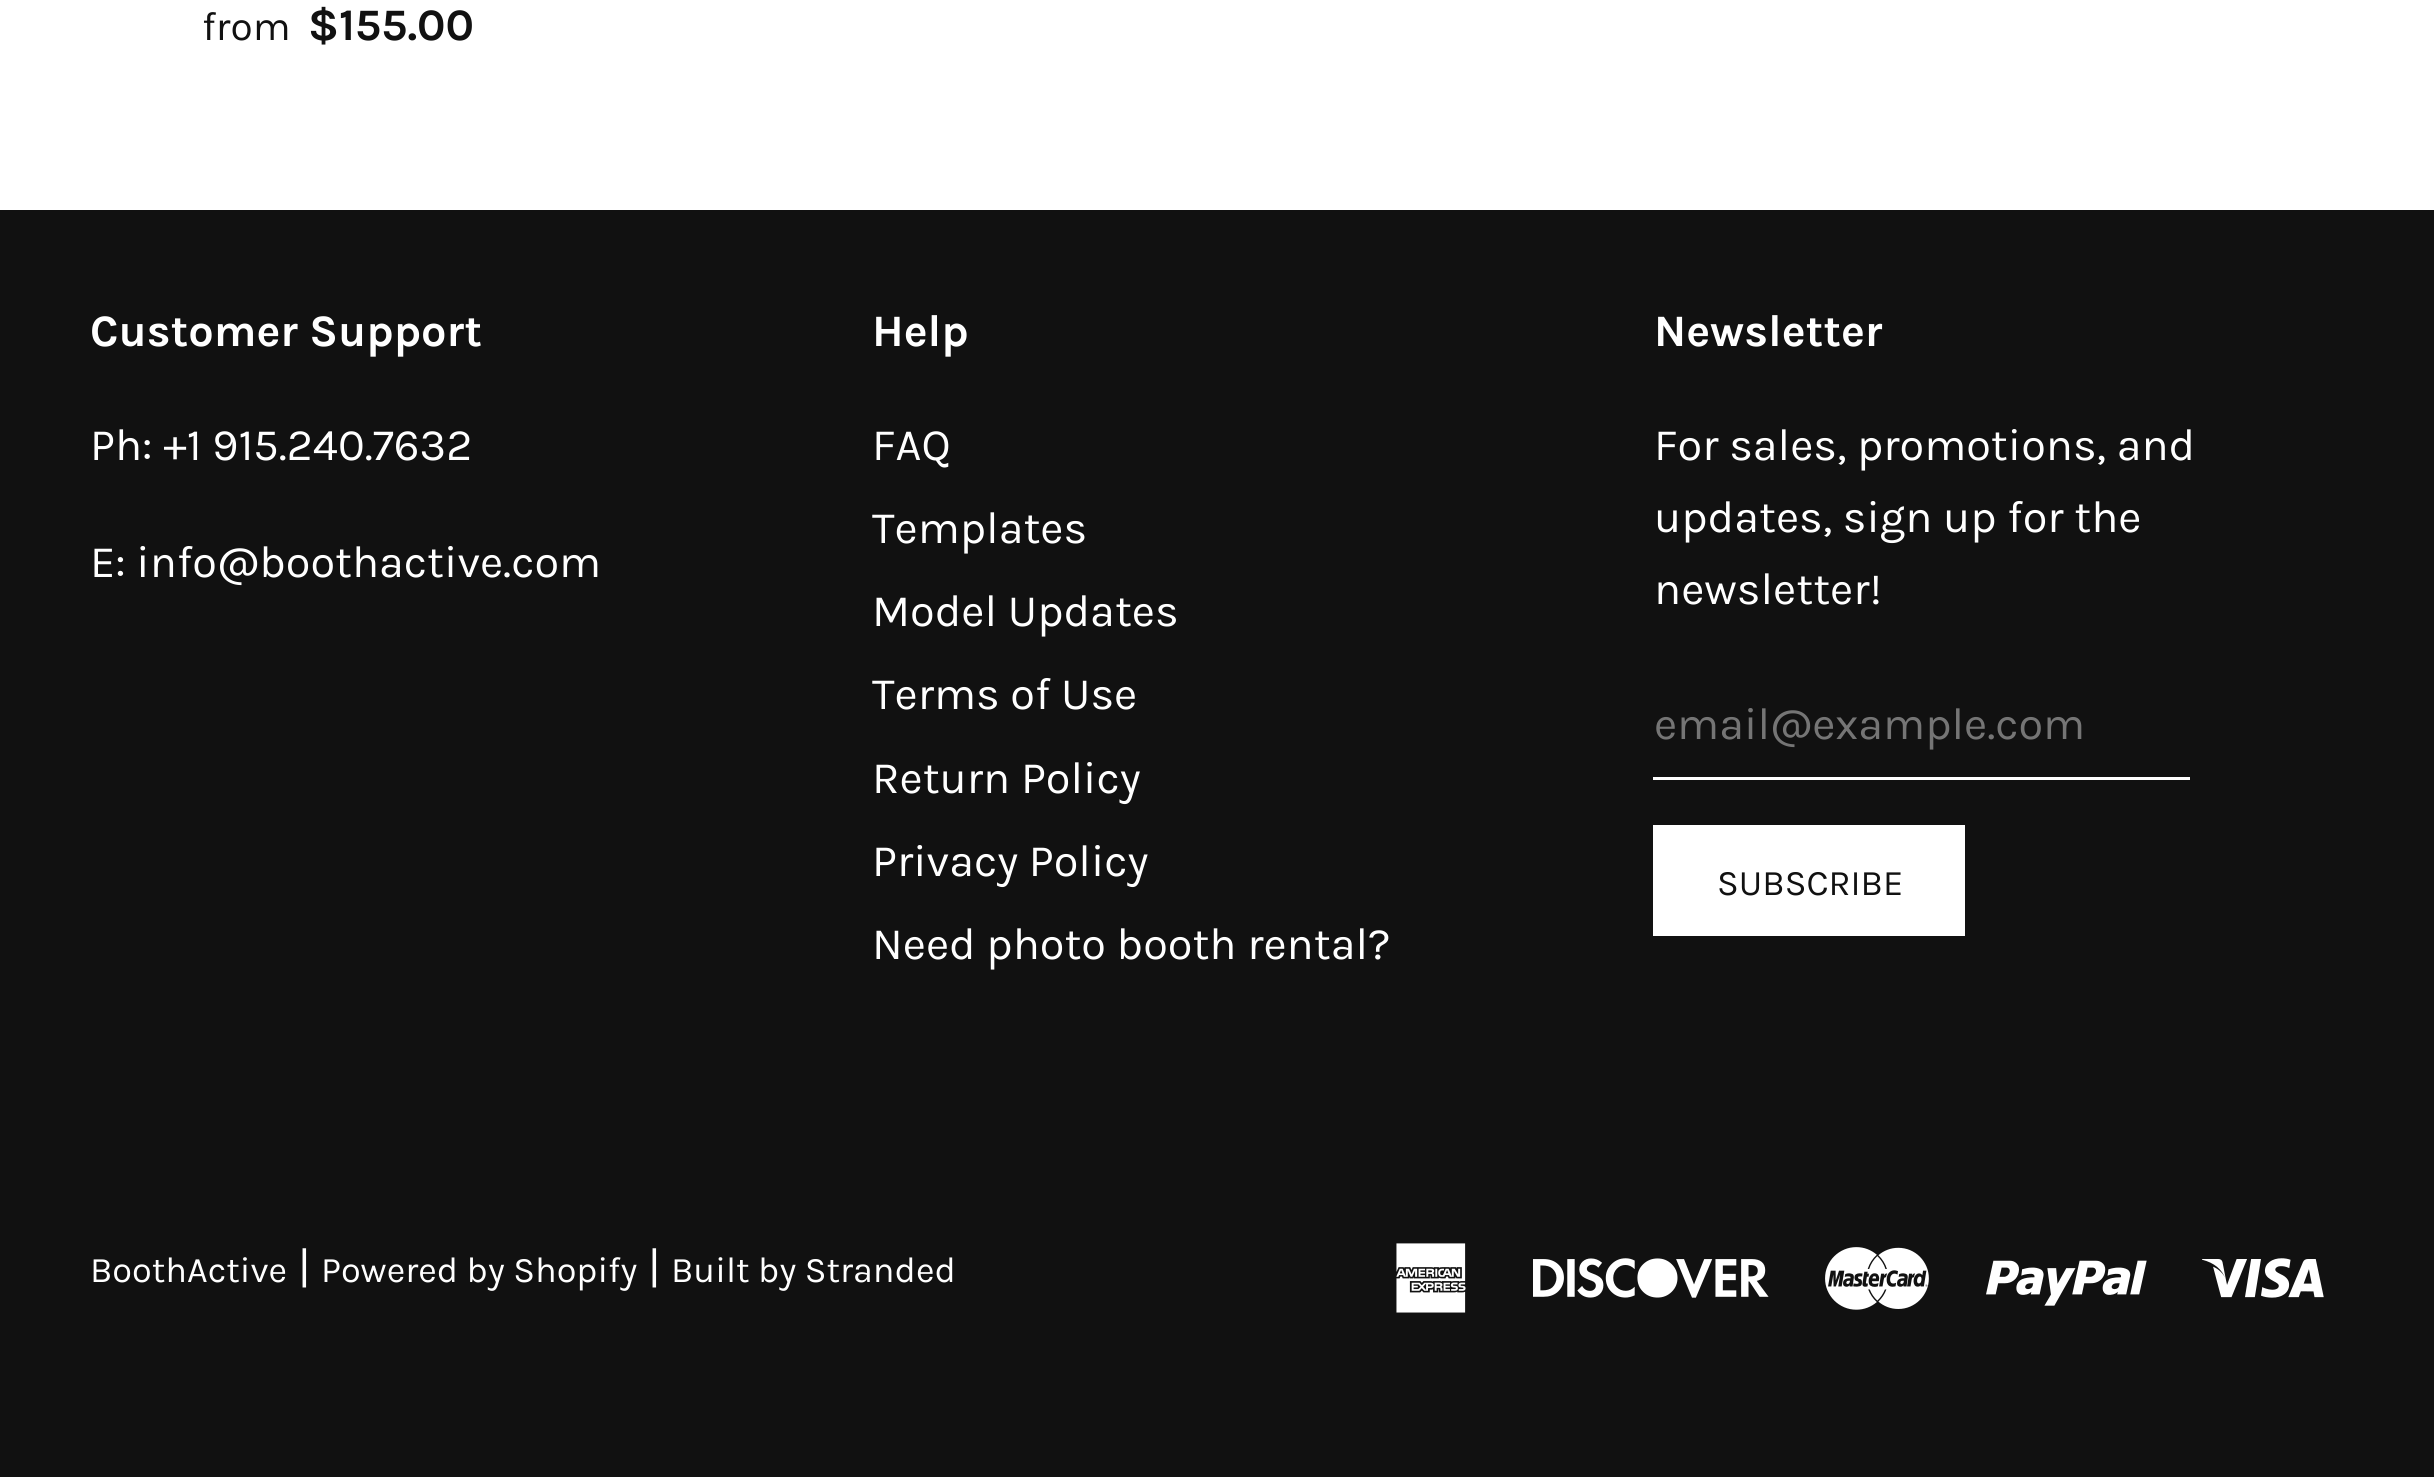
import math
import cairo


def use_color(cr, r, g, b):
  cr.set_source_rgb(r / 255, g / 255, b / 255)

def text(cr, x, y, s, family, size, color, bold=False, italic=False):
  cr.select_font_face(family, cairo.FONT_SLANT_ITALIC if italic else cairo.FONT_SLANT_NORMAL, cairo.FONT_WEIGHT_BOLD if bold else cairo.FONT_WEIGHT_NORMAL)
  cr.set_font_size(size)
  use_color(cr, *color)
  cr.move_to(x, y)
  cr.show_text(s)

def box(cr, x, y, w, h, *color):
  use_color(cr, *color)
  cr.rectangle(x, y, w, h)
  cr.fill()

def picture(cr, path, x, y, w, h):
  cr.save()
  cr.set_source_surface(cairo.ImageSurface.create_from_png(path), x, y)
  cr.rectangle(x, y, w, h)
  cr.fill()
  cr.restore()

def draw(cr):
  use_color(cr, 255, 255, 255)
  cr.paint()
  box(cr, 0, 210, 2434, 1267, 17, 17, 17)
  box(cr, 1653, 777, 537, 3, 255, 255, 255)
  box(cr, 1653, 825, 312, 111, 255, 255, 255)
  picture(cr, "img_01.png", 1396, 1243, 70, 70)
  picture(cr, "img_02.png", 1533, 1258, 236, 40)
  picture(cr, "img_03.png", 1825, 1247, 104, 63)
  picture(cr, "img_04.png", 1986, 1260, 161, 46)
  picture(cr, "img_05.png", 2202, 1258, 122, 40)
  text(cr, 202, 40, "from", "Karla", 40.5, (17, 17, 17))
  text(cr, 308, 40, "$155.00", "Karla", 45, (17, 17, 17), bold=True)
  text(cr, 90, 346, "Customer Support", "Karla", 45, (255, 255, 255), bold=True)
  text(cr, 90, 460, "Ph: +1 915.240.7632", "Karla", 45, (255, 255, 255))
  text(cr, 90, 577, "E: info@boothactive.com", "Karla", 45, (255, 255, 255))
  text(cr, 872, 346, "Help", "Karla", 45, (255, 255, 255), bold=True)
  text(cr, 872, 460, "FAQ", "Karla", 45, (255, 255, 255))
  text(cr, 872, 543, "Templates", "Karla", 45, (255, 255, 255))
  text(cr, 872, 626, "Model Updates", "Karla", 45, (255, 255, 255))
  text(cr, 872, 709, "Terms of Use", "Karla", 45, (255, 255, 255))
  text(cr, 872, 793, "Return Policy", "Karla", 45, (255, 255, 255))
  text(cr, 872, 876, "Privacy Policy", "Karla", 45, (255, 255, 255))
  text(cr, 872, 959, "Need photo booth rental?", "Karla", 45, (255, 255, 255))
  text(cr, 1654, 346, "Newsletter", "Karla", 45, (255, 255, 255), bold=True)
  text(cr, 1654, 460, "For sales, promotions, and", "Karla", 45, (255, 255, 255))
  text(cr, 1654, 532, "updates, sign up for the", "Karla", 45, (255, 255, 255))
  text(cr, 1654, 604, "newsletter!", "Karla", 45, (255, 255, 255))
  text(cr, 1654, 739, "email@example.com", "Karla", 45, (117, 117, 117))
  text(cr, 1717, 895, "SUBSCRIBE", "Karla", 36, (17, 17, 17))
  text(cr, 90, 1282, "BoothActive", "Karla", 36, (255, 255, 255))
  text(cr, 298, 1282, "|", "Karla", 45, (255, 255, 255))
  text(cr, 321, 1282, "Powered by Shopify", "Karla", 36, (255, 255, 255))
  text(cr, 648, 1282, "|", "Karla", 45, (255, 255, 255))
  text(cr, 671, 1282, "Built by Stranded", "Karla", 36, (255, 255, 255))


surface = cairo.ImageSurface(cairo.FORMAT_RGB24, 2434, 1477)
cr = cairo.Context(surface)
options = cairo.FontOptions()
options.set_hint_metrics(cairo.HINT_METRICS_OFF)
options.set_hint_style(cairo.HINT_STYLE_NONE)
cr.set_font_options(options)
cr.set_miter_limit(4)
draw(cr)
surface.write_to_png("out.png")
